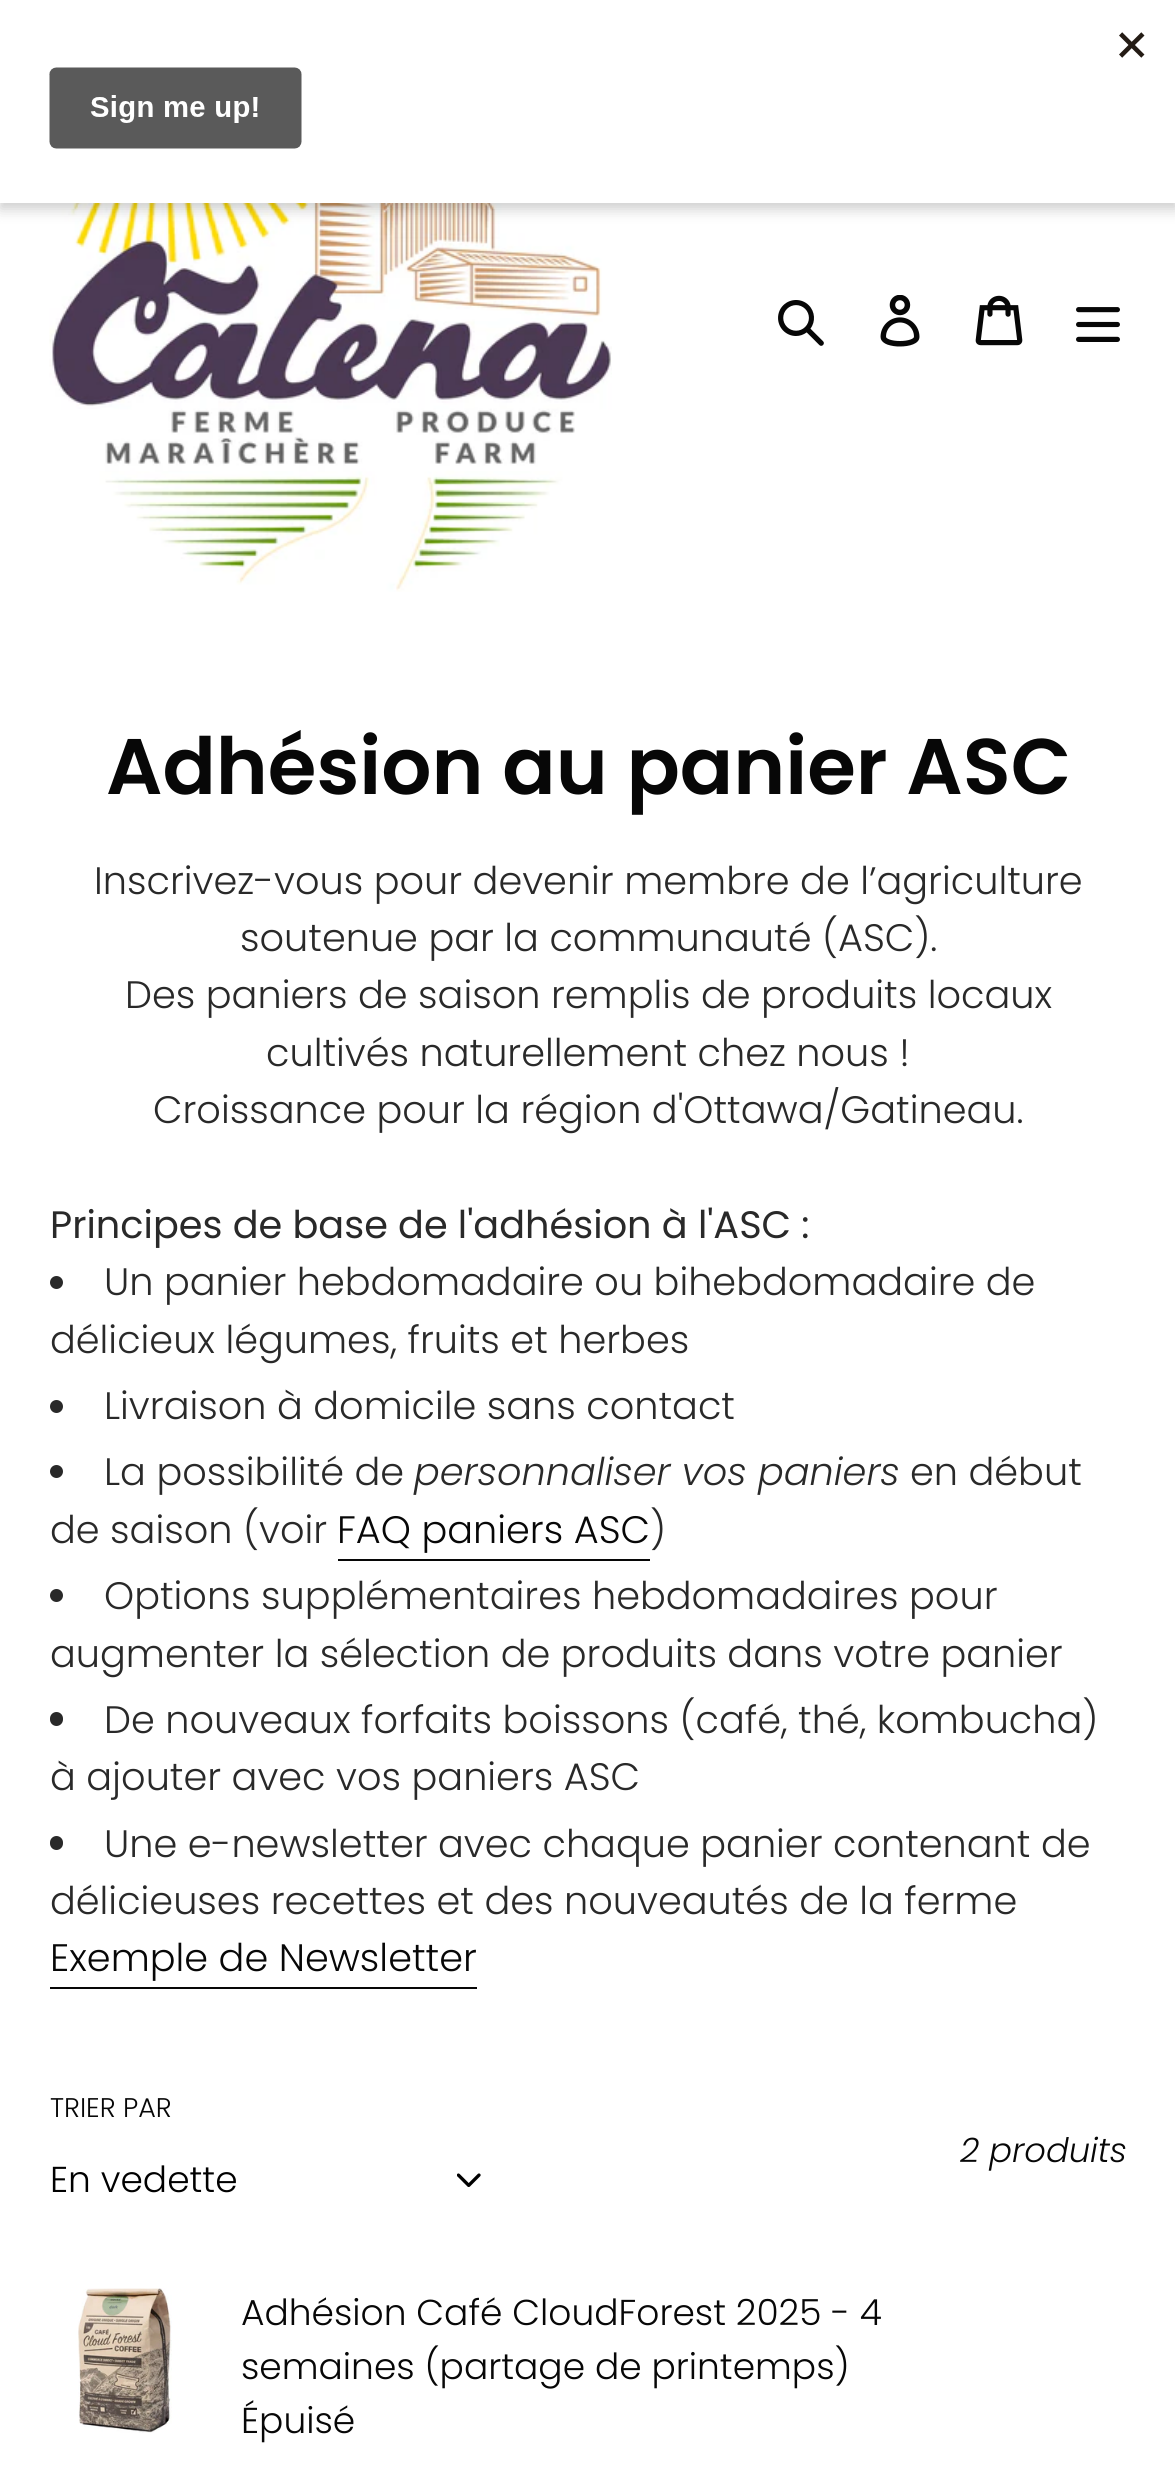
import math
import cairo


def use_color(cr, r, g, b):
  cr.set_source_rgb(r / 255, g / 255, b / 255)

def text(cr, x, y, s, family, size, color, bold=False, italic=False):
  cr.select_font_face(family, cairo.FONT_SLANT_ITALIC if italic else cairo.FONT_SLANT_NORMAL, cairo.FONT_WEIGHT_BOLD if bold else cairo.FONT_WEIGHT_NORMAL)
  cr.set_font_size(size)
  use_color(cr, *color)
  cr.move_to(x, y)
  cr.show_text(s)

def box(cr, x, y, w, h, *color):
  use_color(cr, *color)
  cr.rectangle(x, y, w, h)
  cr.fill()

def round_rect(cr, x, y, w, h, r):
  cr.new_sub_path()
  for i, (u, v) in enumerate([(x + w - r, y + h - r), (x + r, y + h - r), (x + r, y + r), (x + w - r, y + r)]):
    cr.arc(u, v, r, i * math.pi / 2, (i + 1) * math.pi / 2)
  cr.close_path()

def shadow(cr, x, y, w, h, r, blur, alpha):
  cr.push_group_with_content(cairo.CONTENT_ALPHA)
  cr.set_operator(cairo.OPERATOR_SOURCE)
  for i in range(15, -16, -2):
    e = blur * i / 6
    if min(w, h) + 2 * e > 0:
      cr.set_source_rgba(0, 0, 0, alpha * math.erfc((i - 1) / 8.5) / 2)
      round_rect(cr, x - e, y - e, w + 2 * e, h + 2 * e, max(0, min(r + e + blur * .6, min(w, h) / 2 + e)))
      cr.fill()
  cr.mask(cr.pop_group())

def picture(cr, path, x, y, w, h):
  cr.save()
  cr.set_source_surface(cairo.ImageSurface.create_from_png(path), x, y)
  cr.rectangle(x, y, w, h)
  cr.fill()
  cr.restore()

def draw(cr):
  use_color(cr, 255, 255, 255)
  cr.paint()
  picture(cr, "img_02.png", 49, 203, 563, 389)
  use_color(cr, 0, 0, 0)
  shadow(cr, 0, 7, 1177, 202, 0, 7, 0.2)
  box(cr, 0, 0, 1175, 203, 255, 255, 255)
  picture(cr, "img_01.png", 49, 32, 1096, 117)
  picture(cr, "img_03.png", 778, 300, 46, 46)
  picture(cr, "img_04.png", 880, 295, 40, 52)
  picture(cr, "img_05.png", 975, 295, 48, 51)
  picture(cr, "img_06.png", 1076, 307, 44, 35)
  use_color(cr, 41, 41, 41)
  cr.arc(56.5, 1282.5, 6.5, 0, 2 * math.pi)
  cr.fill()
  cr.arc(56.5, 1406.5, 6.5, 0, 2 * math.pi)
  cr.fill()
  cr.arc(56.5, 1471.5, 6.5, 0, 2 * math.pi)
  cr.fill()
  box(cr, 338, 1559, 312, 2, 7, 7, 7)
  use_color(cr, 41, 41, 41)
  cr.arc(56.5, 1595.5, 6.5, 0, 2 * math.pi)
  cr.fill()
  round_rect(cr, 50, 1712, 13, 14, 6.5)
  cr.fill()
  round_rect(cr, 50, 1836, 13, 14, 6.5)
  cr.fill()
  box(cr, 50, 1987, 427, 2, 7, 7, 7)
  picture(cr, "img_07.png", 457, 2173, 24, 14)
  picture(cr, "img_08.png", 78, 2288, 94, 145)
  text(cr, 106, 794, "Adhésion au panier ASC", "Poppins SemiBold", 78.75, (7, 7, 7))
  text(cr, 94, 894, "Inscrivez-vous pour devenir membre de l’agriculture", "Poppins Light", 38.25, (41, 41, 41))
  text(cr, 240, 951, "soutenue par la communauté (ASC).", "Poppins Light", 38.25, (41, 41, 41))
  text(cr, 125, 1008, "Des paniers de saison remplis de produits locaux", "Poppins Light", 38.25, (41, 41, 41))
  text(cr, 266, 1066, "cultivés naturellement chez nous !", "Poppins Light", 38.25, (41, 41, 41))
  text(cr, 153, 1123, "Croissance pour la région d'Ottawa/Gatineau.", "Poppins Light", 38.25, (41, 41, 41))
  text(cr, 50, 1238, "Principes de base de l'adhésion à l'ASC :", "Poppins", 38.25, (41, 41, 41))
  text(cr, 104, 1295, "Un panier hebdomadaire ou bihebdomadaire de", "Poppins Light", 38.25, (41, 41, 41))
  text(cr, 50, 1353, "délicieux légumes, fruits et herbes", "Poppins Light", 38.25, (41, 41, 41))
  text(cr, 104, 1419, "Livraison à domicile sans contact", "Poppins Light", 38.25, (41, 41, 41))
  text(cr, 104, 1485, "La possibilité de", "Poppins Light", 38.25, (41, 41, 41))
  text(cr, 414, 1485, "personnaliser vos paniers", "Poppins Light", 38.25, (41, 41, 41), italic=True)
  text(cr, 910, 1485, "en début", "Poppins Light", 38.25, (41, 41, 41))
  text(cr, 50, 1543, "de saison (voir", "Poppins Light", 38.25, (41, 41, 41))
  text(cr, 337, 1543, "FAQ paniers ASC", "Poppins Light", 38.25, (7, 7, 7))
  text(cr, 650, 1543, ")", "Poppins Light", 38.25, (41, 41, 41))
  text(cr, 104, 1609, "Options supplémentaires hebdomadaires pour", "Poppins Light", 38.25, (41, 41, 41))
  text(cr, 50, 1667, "augmenter la sélection de produits dans votre panier", "Poppins Light", 38.25, (41, 41, 41))
  text(cr, 104, 1733, "De nouveaux forfaits boissons (café, thé, kombucha)", "Poppins Light", 38.25, (41, 41, 41))
  text(cr, 50, 1790, "à ajouter avec vos paniers ASC", "Poppins Light", 38.25, (41, 41, 41))
  text(cr, 104, 1857, "Une e-newsletter avec chaque panier contenant de", "Poppins Light", 38.25, (41, 41, 41))
  text(cr, 50, 1914, "délicieuses recettes et des nouveautés de la ferme", "Poppins Light", 38.25, (41, 41, 41))
  text(cr, 50, 1971, "Exemple de Newsletter", "Poppins Light", 38.25, (7, 7, 7))
  text(cr, 50, 2117, "TRIER PAR", "Poppins Light", 27, (7, 7, 7))
  text(cr, 50, 2192, "En vedette", "Poppins Light", 36, (0, 0, 0))
  text(cr, 960, 2162, "2 produits", "Poppins Light", 33.75, (7, 7, 7), italic=True)
  text(cr, 241, 2325, "Adhésion Café CloudForest 2025 - 4", "Poppins Light", 36, (7, 7, 7))
  text(cr, 241, 2379, "semaines (partage de printemps)", "Poppins Light", 36, (7, 7, 7))
  text(cr, 241, 2433, "Épuisé", "Poppins Light", 36, (7, 7, 7))


surface = cairo.ImageSurface(cairo.FORMAT_RGB24, 1175, 2481)
cr = cairo.Context(surface)
options = cairo.FontOptions()
options.set_hint_metrics(cairo.HINT_METRICS_OFF)
options.set_hint_style(cairo.HINT_STYLE_NONE)
cr.set_font_options(options)
cr.set_miter_limit(4)
draw(cr)
surface.write_to_png("out.png")
